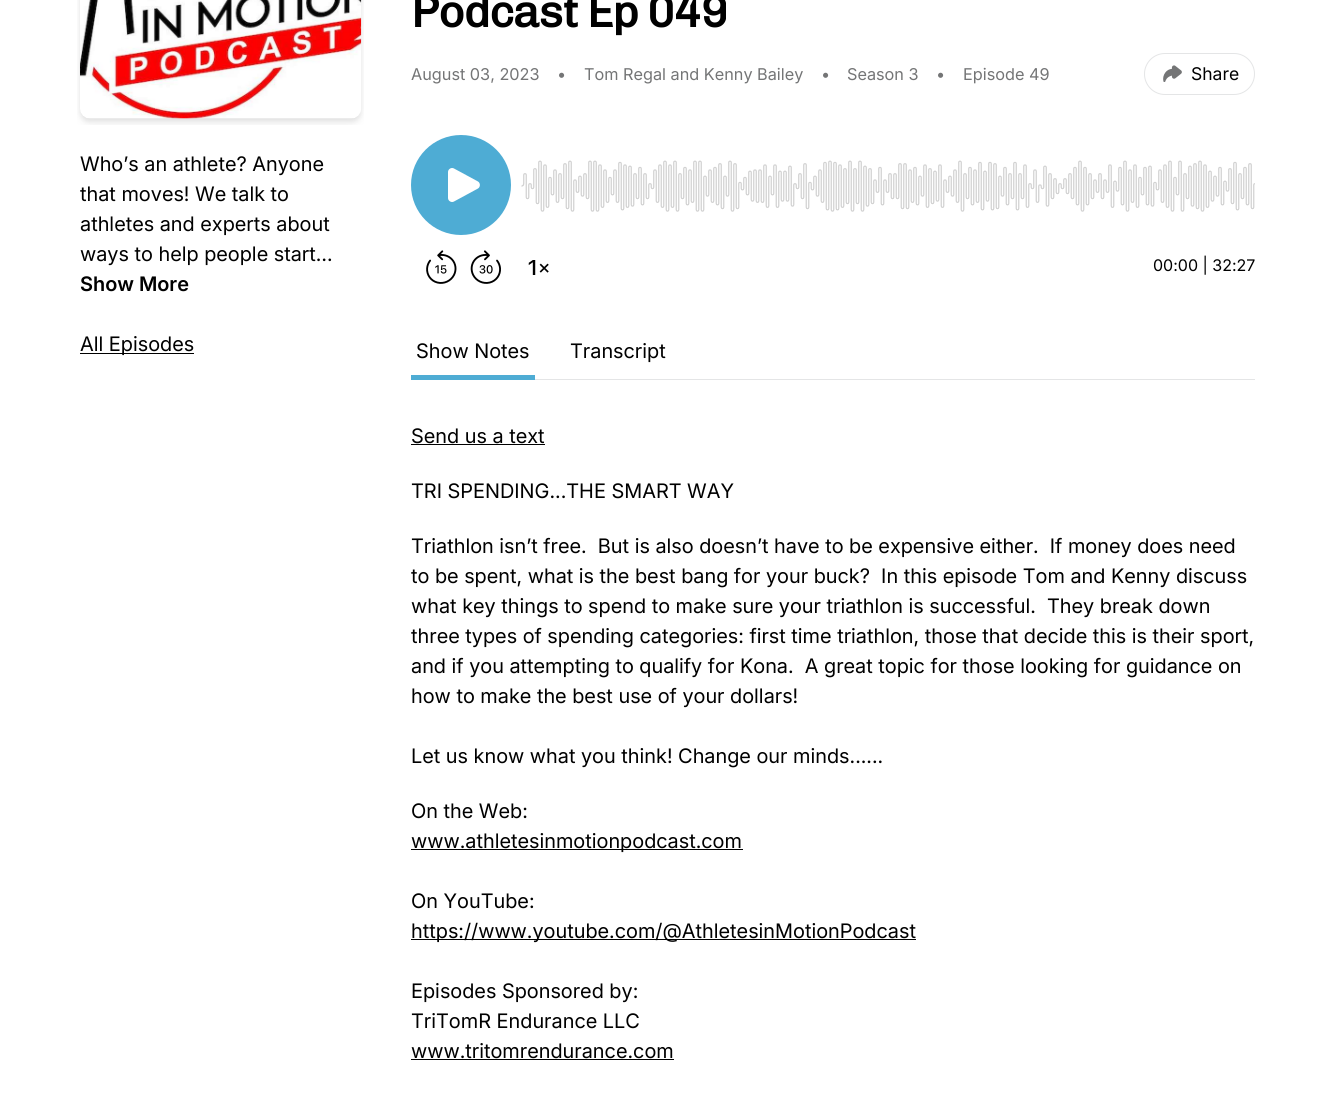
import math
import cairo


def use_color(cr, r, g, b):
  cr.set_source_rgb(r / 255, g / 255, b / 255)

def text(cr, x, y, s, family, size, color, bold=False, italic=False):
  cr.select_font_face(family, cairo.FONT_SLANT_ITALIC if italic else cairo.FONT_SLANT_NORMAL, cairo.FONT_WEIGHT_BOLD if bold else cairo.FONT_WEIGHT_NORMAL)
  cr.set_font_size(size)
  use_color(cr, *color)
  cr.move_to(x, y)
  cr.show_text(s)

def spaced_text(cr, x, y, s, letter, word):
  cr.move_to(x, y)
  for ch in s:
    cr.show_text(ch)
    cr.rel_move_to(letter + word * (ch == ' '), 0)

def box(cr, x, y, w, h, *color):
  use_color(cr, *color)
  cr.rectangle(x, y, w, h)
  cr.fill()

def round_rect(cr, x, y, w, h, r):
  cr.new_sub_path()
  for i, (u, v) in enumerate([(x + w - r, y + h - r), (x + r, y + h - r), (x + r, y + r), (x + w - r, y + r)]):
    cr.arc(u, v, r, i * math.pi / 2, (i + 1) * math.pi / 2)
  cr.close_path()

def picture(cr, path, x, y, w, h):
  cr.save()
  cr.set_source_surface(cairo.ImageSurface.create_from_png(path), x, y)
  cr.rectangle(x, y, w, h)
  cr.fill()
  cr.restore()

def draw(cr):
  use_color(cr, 255, 255, 255)
  cr.paint()
  picture(cr, "img_01.png", 77, 0, 287, 125)
  box(cr, 80, 353, 114, 1, 0, 0, 0)
  round_rect(cr, 1144.5, 53.5, 110, 41, 20.5)
  use_color(cr, 228, 229, 230)
  cr.set_line_width(1)
  cr.stroke()
  picture(cr, "img_02.png", 1163, 65, 19, 17)
  picture(cr, "img_03.png", 426, 250, 31, 34)
  picture(cr, "img_04.png", 470, 250, 31, 34)
  picture(cr, "img_05.png", 528, 260, 21, 15)
  use_color(cr, 78, 172, 212)
  cr.arc(461, 185, 50, 0, 2 * math.pi)
  cr.fill()
  use_color(cr, 255, 255, 255)
  cr.set_fill_rule(cairo.FILL_RULE_EVEN_ODD)
  cr.new_path()
  cr.move_to(448, 172)
  cr.curve_to(448, 169, 451.5, 167, 454, 168.5)
  cr.line_to(478, 181.5)
  cr.curve_to(480.5, 183, 480.5, 187, 478, 188.5)
  cr.line_to(454, 201.5)
  cr.curve_to(451.5, 203, 448, 201, 448, 198)
  cr.close_path()
  cr.fill()
  picture(cr, "img_06.png", 521, 160, 734, 52)
  box(cr, 535, 379, 720, 1, 228, 229, 230)
  box(cr, 411, 375, 124, 5, 78, 172, 212)
  box(cr, 411, 444, 134, 1, 0, 0, 0)
  box(cr, 411, 849, 332, 1, 0, 0, 0)
  box(cr, 411, 939, 505, 1, 0, 0, 0)
  box(cr, 411, 1059, 263, 1, 0, 0, 0)
  text(cr, 80, 171, "Who’s an athlete? Anyone", "Inter", 20, (0, 0, 0))
  text(cr, 80, 201, "that moves! We talk to", "Inter", 20, (0, 0, 0))
  text(cr, 80, 231, "athletes and experts about", "Inter", 20, (0, 0, 0))
  text(cr, 80, 261, "ways to help people start…", "Inter", 20, (0, 0, 0))
  text(cr, 80, 291, "Show More", "Inter SemiBold", 20, (0, 0, 0))
  text(cr, 80, 351, "All Episodes", "Inter", 20, (0, 0, 0))
  cr.select_font_face("Chivo", cairo.FONT_SLANT_NORMAL, cairo.FONT_WEIGHT_BOLD)
  cr.set_font_size(45)
  spaced_text(cr, 411, 27, "Podcast Ep 049", -1.1, 0)
  text(cr, 411, 80, "August 03, 2023", "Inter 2", 16.25, (116, 117, 118))
  text(cr, 557, 80, "•", "Inter 2", 16.25, (116, 117, 118))
  text(cr, 584, 80, "Tom Regal and Kenny Bailey", "Inter 2", 16.25, (116, 117, 118))
  text(cr, 821, 80, "•", "Inter 2", 16.25, (116, 117, 118))
  text(cr, 847, 80, "Season 3", "Inter 2", 16.25, (116, 117, 118))
  text(cr, 936, 80, "•", "Inter 2", 16.25, (116, 117, 118))
  text(cr, 963, 80, "Episode 49", "Inter 2", 16.25, (116, 117, 118))
  text(cr, 1191, 80, "Share", "Inter 2", 17.5, (0, 0, 0))
  text(cr, 1153, 271, "00:00 | 32:27", "Inter 2", 16, (0, 0, 0))
  text(cr, 416, 358, "Show Notes", "Inter", 20, (0, 0, 0))
  text(cr, 570, 358, "Transcript", "Inter", 20, (0, 0, 0))
  text(cr, 411, 443, "Send us a text", "Inter", 20, (0, 0, 0))
  text(cr, 411, 498, "TRI SPENDING...THE SMART WAY", "Inter", 20, (0, 0, 0))
  text(cr, 411, 553, "Triathlon isn’t free.  But is also doesn’t have to be expensive either.  If money does need", "Inter", 20, (0, 0, 0))
  text(cr, 411, 583, "to be spent, what is the best bang for your buck?  In this episode Tom and Kenny discuss", "Inter", 20, (0, 0, 0))
  text(cr, 411, 613, "what key things to spend to make sure your triathlon is successful.  They break down", "Inter", 20, (0, 0, 0))
  text(cr, 411, 643, "three types of spending categories: first time triathlon, those that decide this is their sport,", "Inter", 20, (0, 0, 0))
  text(cr, 411, 673, "and if you attempting to qualify for Kona.  A great topic for those looking for guidance on", "Inter", 20, (0, 0, 0))
  text(cr, 411, 703, "how to make the best use of your dollars!", "Inter", 20, (0, 0, 0))
  text(cr, 411, 763, "Let us know what you think! Change our minds......", "Inter", 20, (0, 0, 0))
  text(cr, 411, 818, "On the Web:", "Inter", 20, (0, 0, 0))
  text(cr, 411, 848, "www.athletesinmotionpodcast.com", "Inter", 20, (0, 0, 0))
  text(cr, 411, 908, "On YouTube:", "Inter", 20, (0, 0, 0))
  text(cr, 411, 938, "https://www.youtube.com/@AthletesinMotionPodcast", "Inter", 20, (0, 0, 0))
  text(cr, 411, 998, "Episodes Sponsored by:", "Inter", 20, (0, 0, 0))
  text(cr, 411, 1028, "TriTomR Endurance LLC", "Inter", 20, (0, 0, 0))
  text(cr, 411, 1058, "www.tritomrendurance.com", "Inter", 20, (0, 0, 0))


surface = cairo.ImageSurface(cairo.FORMAT_RGB24, 1334, 1112)
cr = cairo.Context(surface)
options = cairo.FontOptions()
options.set_hint_metrics(cairo.HINT_METRICS_OFF)
options.set_hint_style(cairo.HINT_STYLE_NONE)
cr.set_font_options(options)
cr.set_miter_limit(4)
draw(cr)
surface.write_to_png("out.png")
